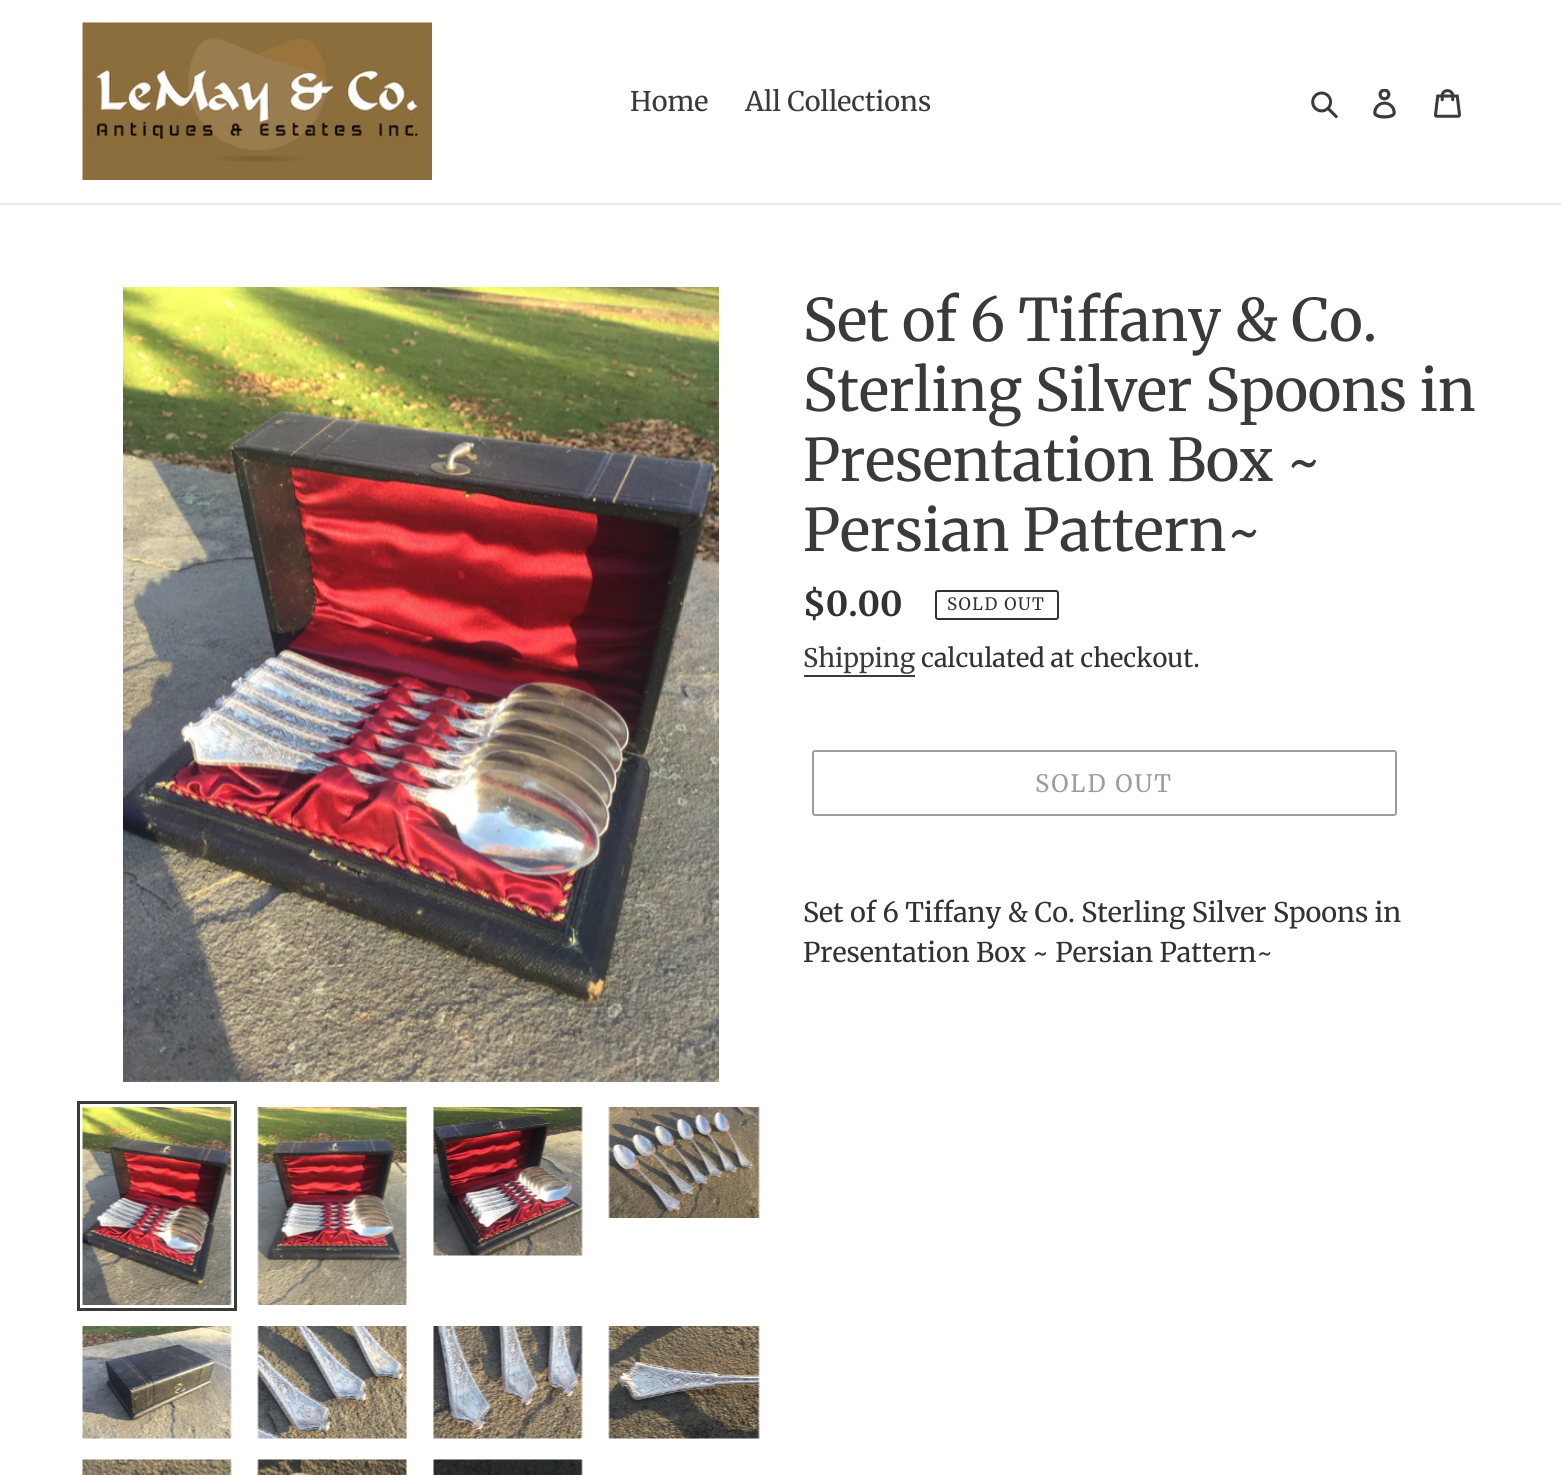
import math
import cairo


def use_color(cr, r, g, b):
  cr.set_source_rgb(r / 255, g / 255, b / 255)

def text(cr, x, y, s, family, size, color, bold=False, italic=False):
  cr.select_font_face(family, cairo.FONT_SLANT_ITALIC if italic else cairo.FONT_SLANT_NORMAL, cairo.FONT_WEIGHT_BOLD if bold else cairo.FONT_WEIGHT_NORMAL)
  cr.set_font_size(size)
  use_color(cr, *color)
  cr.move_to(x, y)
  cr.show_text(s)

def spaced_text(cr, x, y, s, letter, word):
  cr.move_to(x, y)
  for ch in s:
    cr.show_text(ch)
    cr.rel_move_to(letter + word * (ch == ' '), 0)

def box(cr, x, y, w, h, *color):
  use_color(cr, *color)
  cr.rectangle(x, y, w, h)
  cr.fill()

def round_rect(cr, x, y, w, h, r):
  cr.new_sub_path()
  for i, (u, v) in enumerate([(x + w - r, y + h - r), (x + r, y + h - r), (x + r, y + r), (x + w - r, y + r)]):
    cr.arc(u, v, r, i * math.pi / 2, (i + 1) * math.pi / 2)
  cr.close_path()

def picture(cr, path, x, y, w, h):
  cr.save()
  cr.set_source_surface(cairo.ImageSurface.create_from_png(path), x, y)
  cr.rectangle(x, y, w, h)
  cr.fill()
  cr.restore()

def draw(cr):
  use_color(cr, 255, 255, 255)
  cr.paint()
  box(cr, 0, 203, 1561, 2, 235, 235, 235)
  picture(cr, "img_01.png", 82, 22, 350, 158)
  picture(cr, "img_02.png", 1311, 91, 27, 28)
  picture(cr, "img_03.png", 1373, 89, 23, 30)
  picture(cr, "img_04.png", 1434, 89, 27, 29)
  picture(cr, "img_05.png", 123, 287, 596, 795)
  cr.rectangle(78.5, 1102.5, 157, 207)
  use_color(cr, 58, 58, 58)
  cr.set_line_width(3)
  cr.stroke()
  picture(cr, "img_06.png", 82, 1107, 150, 198)
  picture(cr, "img_07.png", 257, 1107, 150, 198)
  picture(cr, "img_08.png", 433, 1107, 150, 149)
  picture(cr, "img_09.png", 608, 1107, 152, 111)
  picture(cr, "img_10.png", 82, 1326, 150, 113)
  picture(cr, "img_11.png", 257, 1326, 150, 113)
  picture(cr, "img_12.png", 433, 1326, 150, 113)
  picture(cr, "img_13.png", 608, 1326, 152, 113)
  picture(cr, "img_14.png", 82, 1459, 150, 16)
  picture(cr, "img_15.png", 257, 1459, 150, 16)
  picture(cr, "img_16.png", 433, 1459, 150, 16)
  round_rect(cr, 936, 591, 122, 28, 2)
  use_color(cr, 51, 50, 50)
  cr.set_line_width(2)
  cr.stroke()
  box(cr, 804, 675, 111, 2, 58, 58, 58)
  round_rect(cr, 813, 751, 583, 64, 2)
  use_color(cr, 157, 157, 157)
  cr.stroke()
  text(cr, 630, 111, "Home", "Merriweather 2", 27, (58, 58, 58))
  text(cr, 745, 111, "All Collections", "Merriweather 2", 27, (58, 58, 58))
  text(cr, 803, 341, "Set of 6 Tiffany & Co.", "Merriweather", 58.5, (58, 58, 58))
  text(cr, 803, 411, "Sterling Silver Spoons in", "Merriweather", 58.5, (58, 58, 58))
  text(cr, 803, 481, "Presentation Box ~", "Merriweather", 58.5, (58, 58, 58))
  text(cr, 803, 551, "Persian Pattern~", "Merriweather", 58.5, (58, 58, 58))
  text(cr, 803, 616, "$0.00", "Merriweather", 34, (51, 50, 50), bold=True)
  cr.select_font_face("Merriweather 2")
  cr.set_font_size(17)
  spaced_text(cr, 947, 610, "SOLD OUT", 1.5, 0)
  text(cr, 803, 667, "Shipping", "Merriweather 2", 25.5, (58, 58, 58))
  text(cr, 921, 667, "calculated at checkout.", "Merriweather 2", 25.5, (51, 50, 50))
  cr.set_font_size(24)
  use_color(cr, 157, 157, 157)
  spaced_text(cr, 1035, 792, "SOLD OUT", 2, 0)
  text(cr, 803, 922, "Set of 6 Tiffany & Co. Sterling Silver Spoons in", "Merriweather 2", 27, (51, 50, 50))
  text(cr, 803, 962, "Presentation Box ~ Persian Pattern~", "Merriweather 2", 27, (51, 50, 50))


surface = cairo.ImageSurface(cairo.FORMAT_RGB24, 1561, 1475)
cr = cairo.Context(surface)
options = cairo.FontOptions()
options.set_hint_metrics(cairo.HINT_METRICS_OFF)
options.set_hint_style(cairo.HINT_STYLE_NONE)
cr.set_font_options(options)
cr.set_miter_limit(4)
draw(cr)
surface.write_to_png("out.png")
